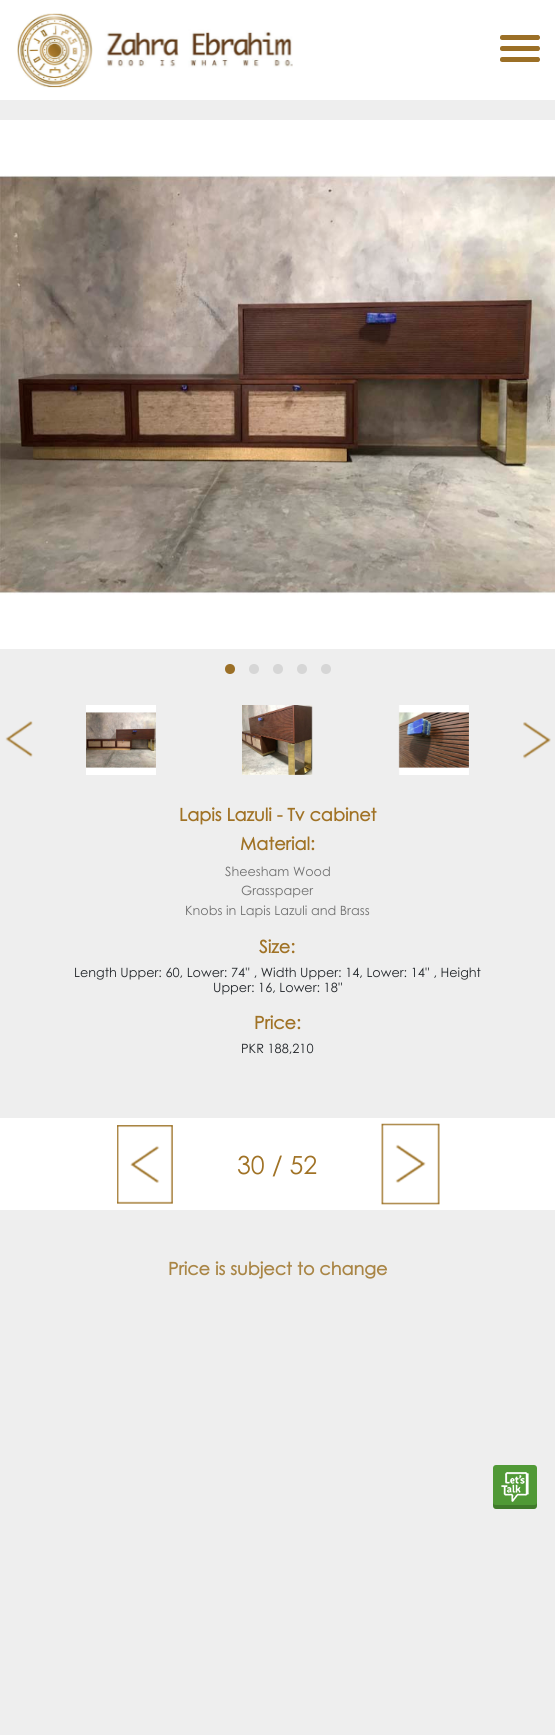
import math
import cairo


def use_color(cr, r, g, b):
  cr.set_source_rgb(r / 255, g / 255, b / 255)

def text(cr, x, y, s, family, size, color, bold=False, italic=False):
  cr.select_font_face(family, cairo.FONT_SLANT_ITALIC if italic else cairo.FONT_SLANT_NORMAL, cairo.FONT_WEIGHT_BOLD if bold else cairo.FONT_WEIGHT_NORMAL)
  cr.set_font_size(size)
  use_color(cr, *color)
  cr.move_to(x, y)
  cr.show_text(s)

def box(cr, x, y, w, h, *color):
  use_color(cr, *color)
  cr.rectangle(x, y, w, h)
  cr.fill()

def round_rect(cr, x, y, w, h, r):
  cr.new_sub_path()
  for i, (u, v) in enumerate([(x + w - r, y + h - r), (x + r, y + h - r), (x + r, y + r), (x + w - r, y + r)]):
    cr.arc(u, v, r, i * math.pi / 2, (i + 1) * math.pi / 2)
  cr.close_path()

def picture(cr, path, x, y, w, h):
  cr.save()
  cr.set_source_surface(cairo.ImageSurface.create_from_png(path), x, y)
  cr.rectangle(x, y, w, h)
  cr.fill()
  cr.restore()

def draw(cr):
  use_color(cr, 238, 238, 238)
  cr.paint()
  box(cr, 0, 0, 555, 100, 255, 255, 255)
  picture(cr, "img_01.png", 17, 13, 276, 75)
  picture(cr, "img_02.png", 500, 35, 40, 27)
  picture(cr, "img_03.png", 0, 120, 555, 529)
  use_color(cr, 155, 111, 38)
  cr.arc(230, 669, 5, 0, 2 * math.pi)
  cr.fill()
  use_color(cr, 214, 214, 214)
  cr.arc(254, 669, 5, 0, 2 * math.pi)
  cr.fill()
  cr.arc(278, 669, 5, 0, 2 * math.pi)
  cr.fill()
  cr.arc(302, 669, 5, 0, 2 * math.pi)
  cr.fill()
  cr.arc(326, 669, 5, 0, 2 * math.pi)
  cr.fill()
  picture(cr, "img_04.png", 86, 705, 70, 70)
  picture(cr, "img_05.png", 242, 705, 71, 70)
  picture(cr, "img_06.png", 398, 705, 71, 70)
  picture(cr, "img_07.png", 5, 721, 28, 36)
  picture(cr, "img_08.png", 523, 722, 28, 37)
  box(cr, 0, 1118, 555, 92, 255, 255, 255)
  picture(cr, "img_09.png", 117, 1125, 56, 79)
  picture(cr, "img_10.png", 381, 1123, 59, 82)
  use_color(cr, 80, 153, 54)
  round_rect(cr, 493, 1465, 44, 44, 3)
  cr.fill()
  cr.set_source_rgba(0, 0, 0, 0.2)
  cr.new_path()
  cr.move_to(493, 1502)
  cr.curve_to(493, 1510, 494, 1509, 502, 1509)
  cr.line_to(528, 1509)
  cr.curve_to(536, 1509, 537, 1510, 537, 1502)
  cr.curve_to(537, 1504, 536, 1505, 534, 1505)
  cr.line_to(496, 1505)
  cr.curve_to(494, 1505, 493, 1504, 493, 1502)
  cr.close_path()
  cr.fill()
  picture(cr, "img_11.png", 501, 1472, 28, 30)
  text(cr, 179, 821, "Lapis Lazuli - Tv cabinet", "Century Gothic", 17.6, (160, 114, 37), bold=True)
  text(cr, 240, 850, "Material:", "Century Gothic", 17.6, (160, 114, 37), bold=True)
  text(cr, 225, 876, "Sheesham Wood", "Century Gothic", 12.8, (112, 112, 112))
  text(cr, 241, 895, "Grasspaper", "Century Gothic", 12.8, (112, 112, 112))
  text(cr, 185, 915, "Knobs in Lapis Lazuli and Brass", "Century Gothic", 12.8, (112, 112, 112))
  text(cr, 259, 953, "Size:", "Century Gothic", 17.6, (160, 114, 37), bold=True)
  text(cr, 74, 977, "Length Upper: 60, Lower: 74'' , Width Upper: 14, Lower: 14'' , Height", "Century Gothic", 12.8, (33, 37, 41))
  text(cr, 213, 992, "Upper: 16, Lower: 18''", "Century Gothic", 12.8, (33, 37, 41))
  text(cr, 254, 1029, "Price:", "Century Gothic", 17.6, (160, 114, 37), bold=True)
  text(cr, 241, 1053, "PKR 188,210", "Century Gothic", 12.8, (33, 37, 41))
  text(cr, 237, 1174, "30 / 52", "Century Gothic", 25, (160, 114, 37))
  text(cr, 168, 1275, "Price is subject to change", "Century Gothic", 17.6, (169, 133, 69), bold=True)


surface = cairo.ImageSurface(cairo.FORMAT_RGB24, 555, 1735)
cr = cairo.Context(surface)
options = cairo.FontOptions()
options.set_hint_metrics(cairo.HINT_METRICS_OFF)
options.set_hint_style(cairo.HINT_STYLE_NONE)
cr.set_font_options(options)
cr.set_miter_limit(4)
draw(cr)
surface.write_to_png("out.png")
